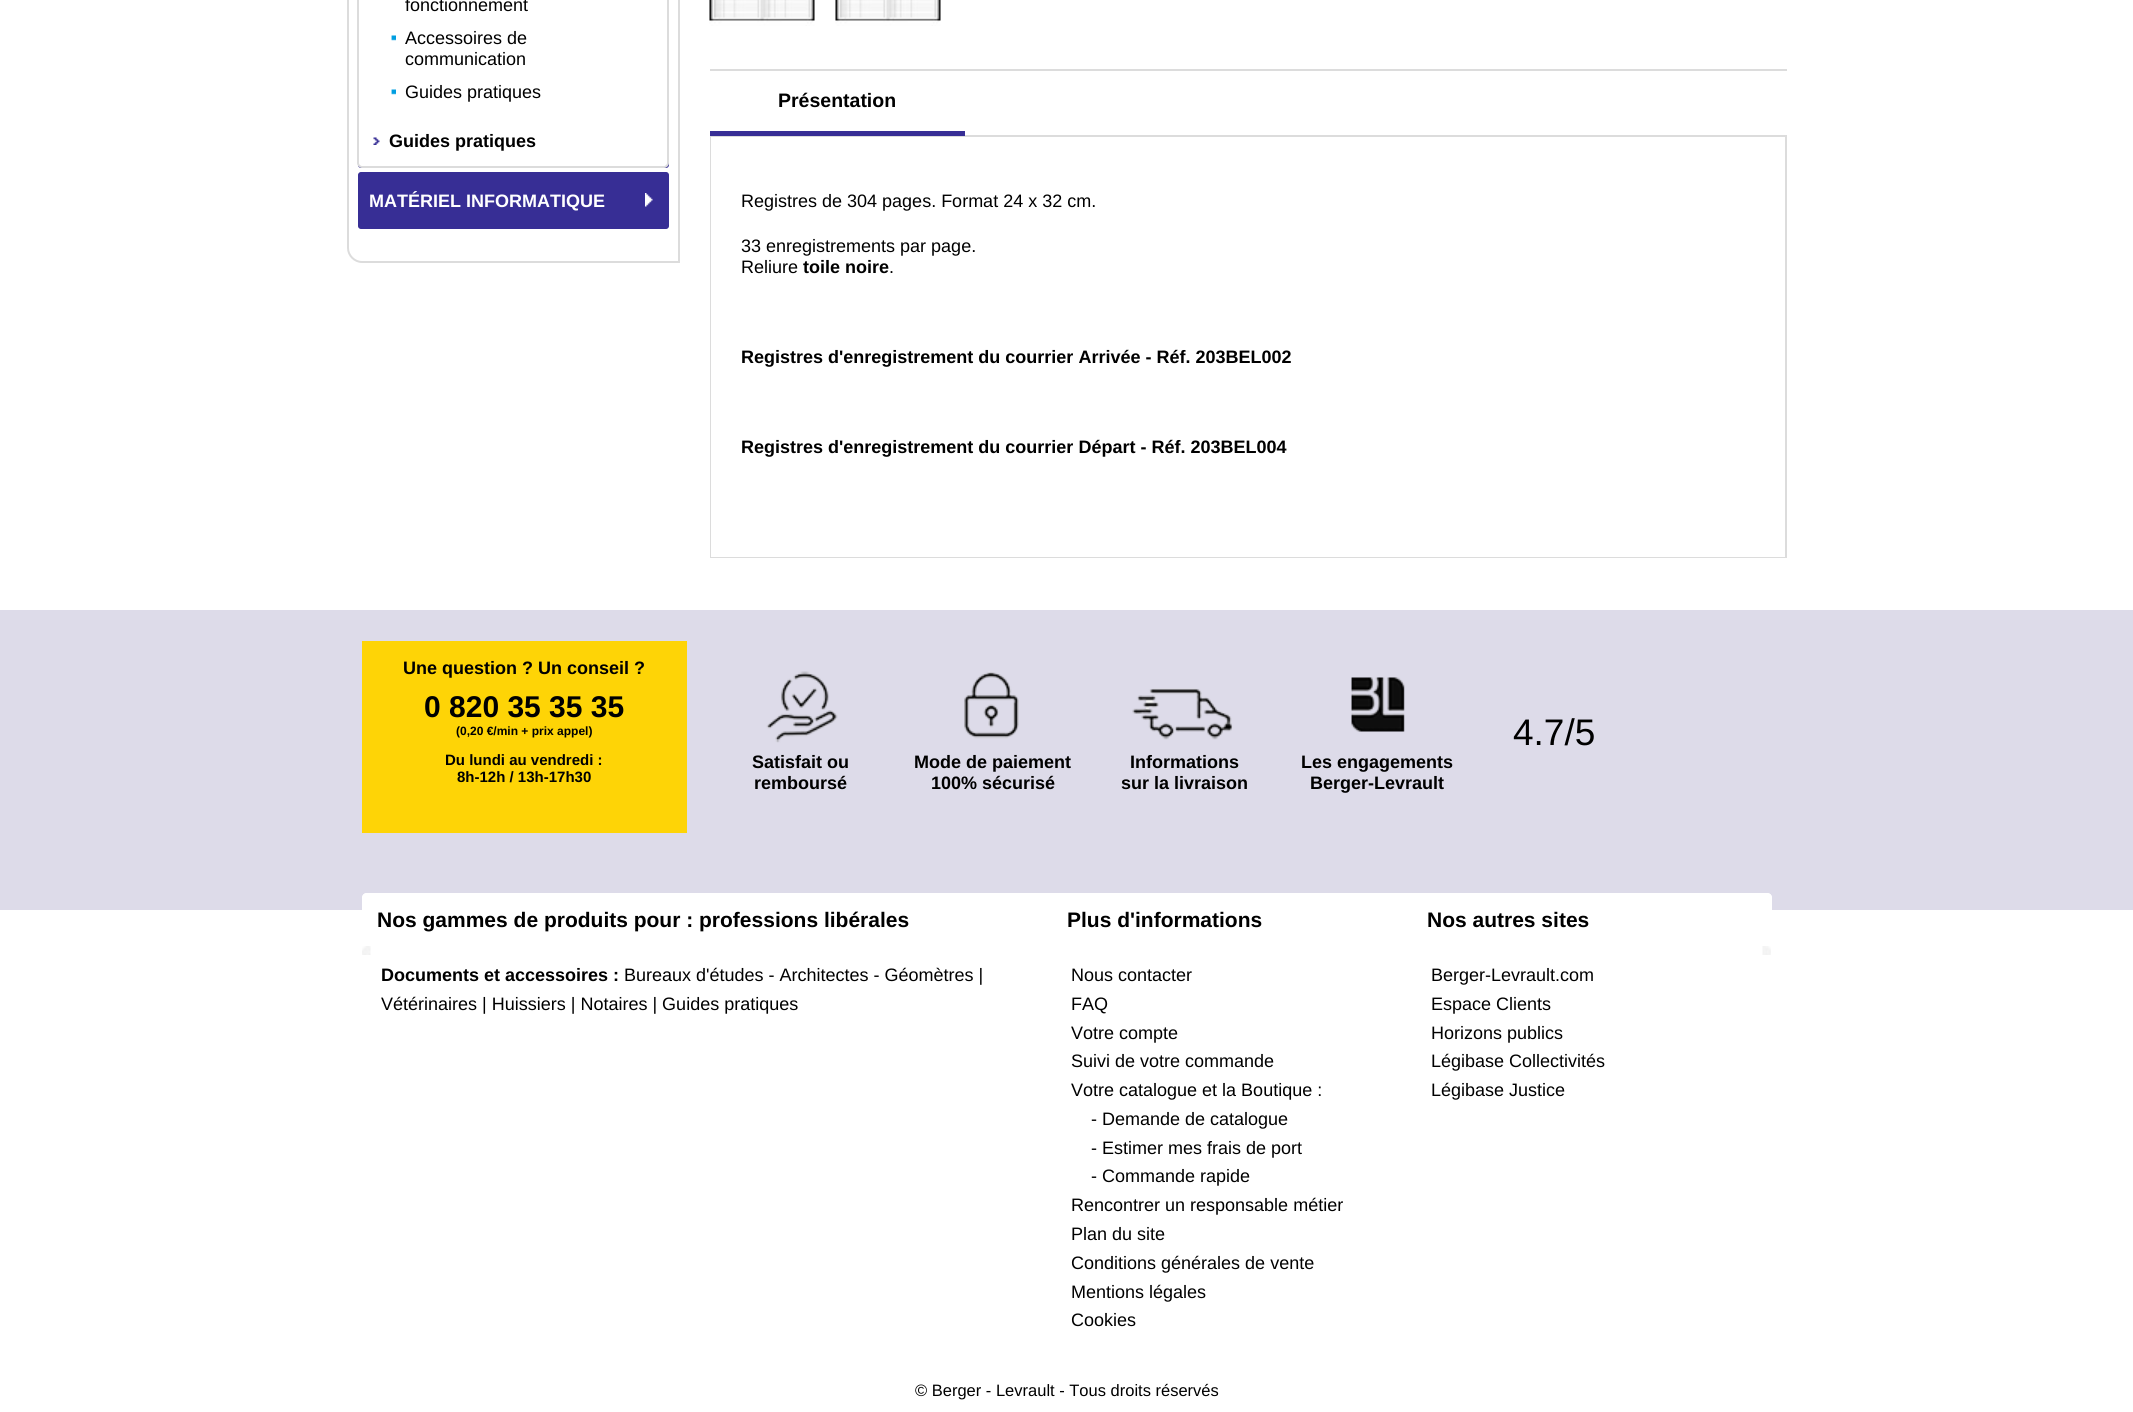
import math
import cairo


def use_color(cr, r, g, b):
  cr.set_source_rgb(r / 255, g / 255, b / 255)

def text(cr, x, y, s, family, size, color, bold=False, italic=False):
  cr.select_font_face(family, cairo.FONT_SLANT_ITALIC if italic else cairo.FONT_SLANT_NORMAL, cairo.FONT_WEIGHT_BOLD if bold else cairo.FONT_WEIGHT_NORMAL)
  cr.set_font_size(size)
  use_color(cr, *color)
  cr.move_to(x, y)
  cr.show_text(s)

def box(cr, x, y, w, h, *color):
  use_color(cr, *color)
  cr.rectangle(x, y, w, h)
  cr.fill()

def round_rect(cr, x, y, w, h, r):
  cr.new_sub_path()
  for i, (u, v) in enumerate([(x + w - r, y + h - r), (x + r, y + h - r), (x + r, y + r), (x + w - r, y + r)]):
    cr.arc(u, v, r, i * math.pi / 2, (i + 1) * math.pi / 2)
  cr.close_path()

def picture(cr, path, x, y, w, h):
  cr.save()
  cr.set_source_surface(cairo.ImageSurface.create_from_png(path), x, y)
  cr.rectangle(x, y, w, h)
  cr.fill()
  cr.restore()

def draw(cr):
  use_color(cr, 255, 255, 255)
  cr.paint()
  cr.new_path()
  cr.move_to(348, -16)
  cr.line_to(665, -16)
  cr.curve_to(672.5, -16, 679, -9.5, 679, -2)
  cr.line_to(679, 262)
  cr.line_to(362, 262)
  cr.curve_to(354.5, 262, 348, 255.5, 348, 248)
  cr.close_path()
  use_color(cr, 220, 220, 220)
  cr.stroke()
  use_color(cr, 55, 46, 149)
  round_rect(cr, 357, -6, 313, 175, 4)
  cr.fill_preserve()
  use_color(cr, 255, 255, 255)
  cr.stroke()
  cr.new_path()
  cr.move_to(358, -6)
  cr.line_to(668, -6)
  cr.line_to(668, 163)
  cr.curve_to(668, 165, 666, 167, 664, 167)
  cr.line_to(362, 167)
  cr.curve_to(360, 167, 358, 165, 358, 163)
  cr.close_path()
  cr.fill_preserve()
  use_color(cr, 220, 220, 220)
  cr.stroke()
  picture(cr, "img_01.png", 391, 35, 5, 6)
  picture(cr, "img_01.png", 391, 89, 5, 6)
  picture(cr, "img_02.png", 373, 137, 7, 8)
  use_color(cr, 55, 46, 149)
  round_rect(cr, 357, 171, 313, 59, 4)
  cr.fill_preserve()
  use_color(cr, 255, 255, 255)
  cr.stroke()
  picture(cr, "img_03.png", 645, 193, 8, 14)
  picture(cr, "img_04.png", 709, 0, 106, 26)
  picture(cr, "img_05.png", 835, 0, 106, 26)
  box(cr, 710, 69, 1077, 2, 220, 220, 220)
  cr.rectangle(711, 136, 1075, 421)
  cr.stroke()
  box(cr, 710, 131, 255, 5, 55, 46, 149)
  box(cr, 711, 137, 1074, 420, 255, 255, 255)
  box(cr, 0, 610, 2133, 300, 221, 219, 233)
  box(cr, 362, 641, 325, 192, 254, 212, 6)
  picture(cr, "img_06.png", 766, 671, 72, 72)
  picture(cr, "img_07.png", 964, 671, 55, 68)
  picture(cr, "img_08.png", 1132, 688, 101, 52)
  picture(cr, "img_09.png", 1351, 677, 54, 55)
  use_color(cr, 255, 255, 255)
  round_rect(cr, 362, 893, 1410, 457, 5)
  cr.fill()
  cr.new_path()
  cr.move_to(367, 893)
  cr.line_to(1052, 893)
  cr.line_to(1052, 947)
  cr.line_to(362, 947)
  cr.line_to(362, 898)
  cr.curve_to(362, 895, 364, 893, 367, 893)
  cr.close_path()
  cr.fill()
  picture(cr, "img_10.png", 362, 946, 9, 9)
  cr.new_path()
  cr.move_to(1412, 893)
  cr.line_to(1767, 893)
  cr.curve_to(1770, 893, 1772, 895, 1772, 898)
  cr.line_to(1772, 947)
  cr.line_to(1412, 947)
  cr.close_path()
  cr.fill()
  picture(cr, "img_11.png", 1762, 946, 9, 9)
  text(cr, 405, 11, "fonctionnement", "Liberation Sans", 18, (0, 0, 0))
  text(cr, 405, 44, "Accessoires de", "Liberation Sans", 18, (0, 0, 0))
  text(cr, 405, 65, "communication", "Liberation Sans", 18, (0, 0, 0))
  text(cr, 405, 98, "Guides pratiques", "Liberation Sans", 18, (0, 0, 0))
  text(cr, 389, 147, "Guides pratiques", "Liberation Sans", 18, (0, 0, 0), bold=True)
  text(cr, 369, 207, "MATÉRIEL INFORMATIQUE", "Liberation Sans", 18, (255, 255, 255), bold=True)
  text(cr, 778, 107, "Présentation", "Liberation Sans", 19.5, (0, 0, 0), bold=True)
  text(cr, 741, 207, "Registres de 304 pages. Format 24 x 32 cm.", "Liberation Sans", 18, (0, 0, 0))
  text(cr, 741, 252, "33 enregistrements par page.", "Liberation Sans", 18, (0, 0, 0))
  text(cr, 741, 273, "Reliure", "Liberation Sans", 18, (0, 0, 0))
  text(cr, 803, 273, "toile noire", "Liberation Sans", 18, (0, 0, 0), bold=True)
  text(cr, 889, 273, ".", "Liberation Sans", 18, (0, 0, 0))
  text(cr, 741, 363, "Registres d'enregistrement du courrier Arrivée - Réf. 203BEL002", "Liberation Sans", 18, (0, 0, 0), bold=True)
  text(cr, 741, 453, "Registres d'enregistrement du courrier Départ - Réf. 203BEL004", "Liberation Sans", 18, (0, 0, 0), bold=True)
  text(cr, 403, 674, "Une question ? Un conseil ?", "Liberation Sans", 18, (0, 0, 0), bold=True)
  text(cr, 424, 717, "0 820 35 35 35", "Liberation Sans", 30, (0, 0, 0), bold=True)
  text(cr, 456, 735, "(0,20 €/min + prix appel)", "Liberation Sans", 12, (0, 0, 0), bold=True)
  text(cr, 445, 765, "Du lundi au vendredi :", "Liberation Sans", 15, (0, 0, 0), bold=True)
  text(cr, 457, 782, "8h-12h / 13h-17h30", "Liberation Sans", 15, (0, 0, 0), bold=True)
  text(cr, 1513, 745, "4.7/5", "Liberation Sans", 37, (0, 0, 0))
  text(cr, 752, 768, "Satisfait ou", "Liberation Sans", 18, (0, 0, 0), bold=True)
  text(cr, 754, 789, "remboursé", "Liberation Sans", 18, (0, 0, 0), bold=True)
  text(cr, 914, 768, "Mode de paiement", "Liberation Sans", 18, (0, 0, 0), bold=True)
  text(cr, 931, 789, "100% sécurisé", "Liberation Sans", 18, (0, 0, 0), bold=True)
  text(cr, 1130, 768, "Informations", "Liberation Sans", 18, (0, 0, 0), bold=True)
  text(cr, 1121, 789, "sur la livraison", "Liberation Sans", 18, (0, 0, 0), bold=True)
  text(cr, 1301, 768, "Les engagements", "Liberation Sans", 18, (0, 0, 0), bold=True)
  text(cr, 1310, 789, "Berger-Levrault", "Liberation Sans", 18, (0, 0, 0), bold=True)
  text(cr, 377, 927, "Nos gammes de produits pour : professions libérales", "Liberation Sans", 21, (0, 0, 0), bold=True)
  text(cr, 381, 981, "Documents et accessoires :", "Liberation Sans", 18, (0, 0, 0), bold=True)
  text(cr, 624, 981, "Bureaux d'études - Architectes - Géomètres |", "Liberation Sans", 18, (0, 0, 0))
  text(cr, 381, 1010, "Vétérinaires | Huissiers | Notaires | Guides pratiques", "Liberation Sans", 18, (0, 0, 0))
  text(cr, 1067, 927, "Plus d'informations", "Liberation Sans", 21, (0, 0, 0), bold=True)
  text(cr, 1071, 981, "Nous contacter", "Liberation Sans", 18, (0, 0, 0))
  text(cr, 1071, 1010, "FAQ", "Liberation Sans", 18, (0, 0, 0))
  text(cr, 1071, 1039, "Votre compte", "Liberation Sans", 18, (0, 0, 0))
  text(cr, 1071, 1067, "Suivi de votre commande", "Liberation Sans", 18, (0, 0, 0))
  text(cr, 1071, 1096, "Votre catalogue et la Boutique :", "Liberation Sans", 18, (0, 0, 0))
  text(cr, 1091, 1125, "- Demande de catalogue", "Liberation Sans", 18, (0, 0, 0))
  text(cr, 1091, 1154, "- Estimer mes frais de port", "Liberation Sans", 18, (0, 0, 0))
  text(cr, 1091, 1182, "- Commande rapide", "Liberation Sans", 18, (0, 0, 0))
  text(cr, 1071, 1211, "Rencontrer un responsable métier", "Liberation Sans", 18, (0, 0, 0))
  text(cr, 1071, 1240, "Plan du site", "Liberation Sans", 18, (0, 0, 0))
  text(cr, 1071, 1269, "Conditions générales de vente", "Liberation Sans", 18, (0, 0, 0))
  text(cr, 1071, 1298, "Mentions légales", "Liberation Sans", 18, (0, 0, 0))
  text(cr, 1071, 1326, "Cookies", "Liberation Sans", 18, (0, 0, 0))
  text(cr, 1427, 927, "Nos autres sites", "Liberation Sans", 21, (0, 0, 0), bold=True)
  text(cr, 1431, 981, "Berger-Levrault.com", "Liberation Sans", 18, (0, 0, 0))
  text(cr, 1431, 1010, "Espace Clients", "Liberation Sans", 18, (0, 0, 0))
  text(cr, 1431, 1039, "Horizons publics", "Liberation Sans", 18, (0, 0, 0))
  text(cr, 1431, 1067, "Légibase Collectivités", "Liberation Sans", 18, (0, 0, 0))
  text(cr, 1431, 1096, "Légibase Justice", "Liberation Sans", 18, (0, 0, 0))
  text(cr, 915, 1396, "© Berger - Levrault - Tous droits réservés", "Liberation Sans", 16.5, (0, 0, 0))


surface = cairo.ImageSurface(cairo.FORMAT_RGB24, 2133, 1412)
cr = cairo.Context(surface)
options = cairo.FontOptions()
options.set_hint_metrics(cairo.HINT_METRICS_OFF)
options.set_hint_style(cairo.HINT_STYLE_NONE)
cr.set_font_options(options)
cr.set_miter_limit(4)
draw(cr)
surface.write_to_png("out.png")
